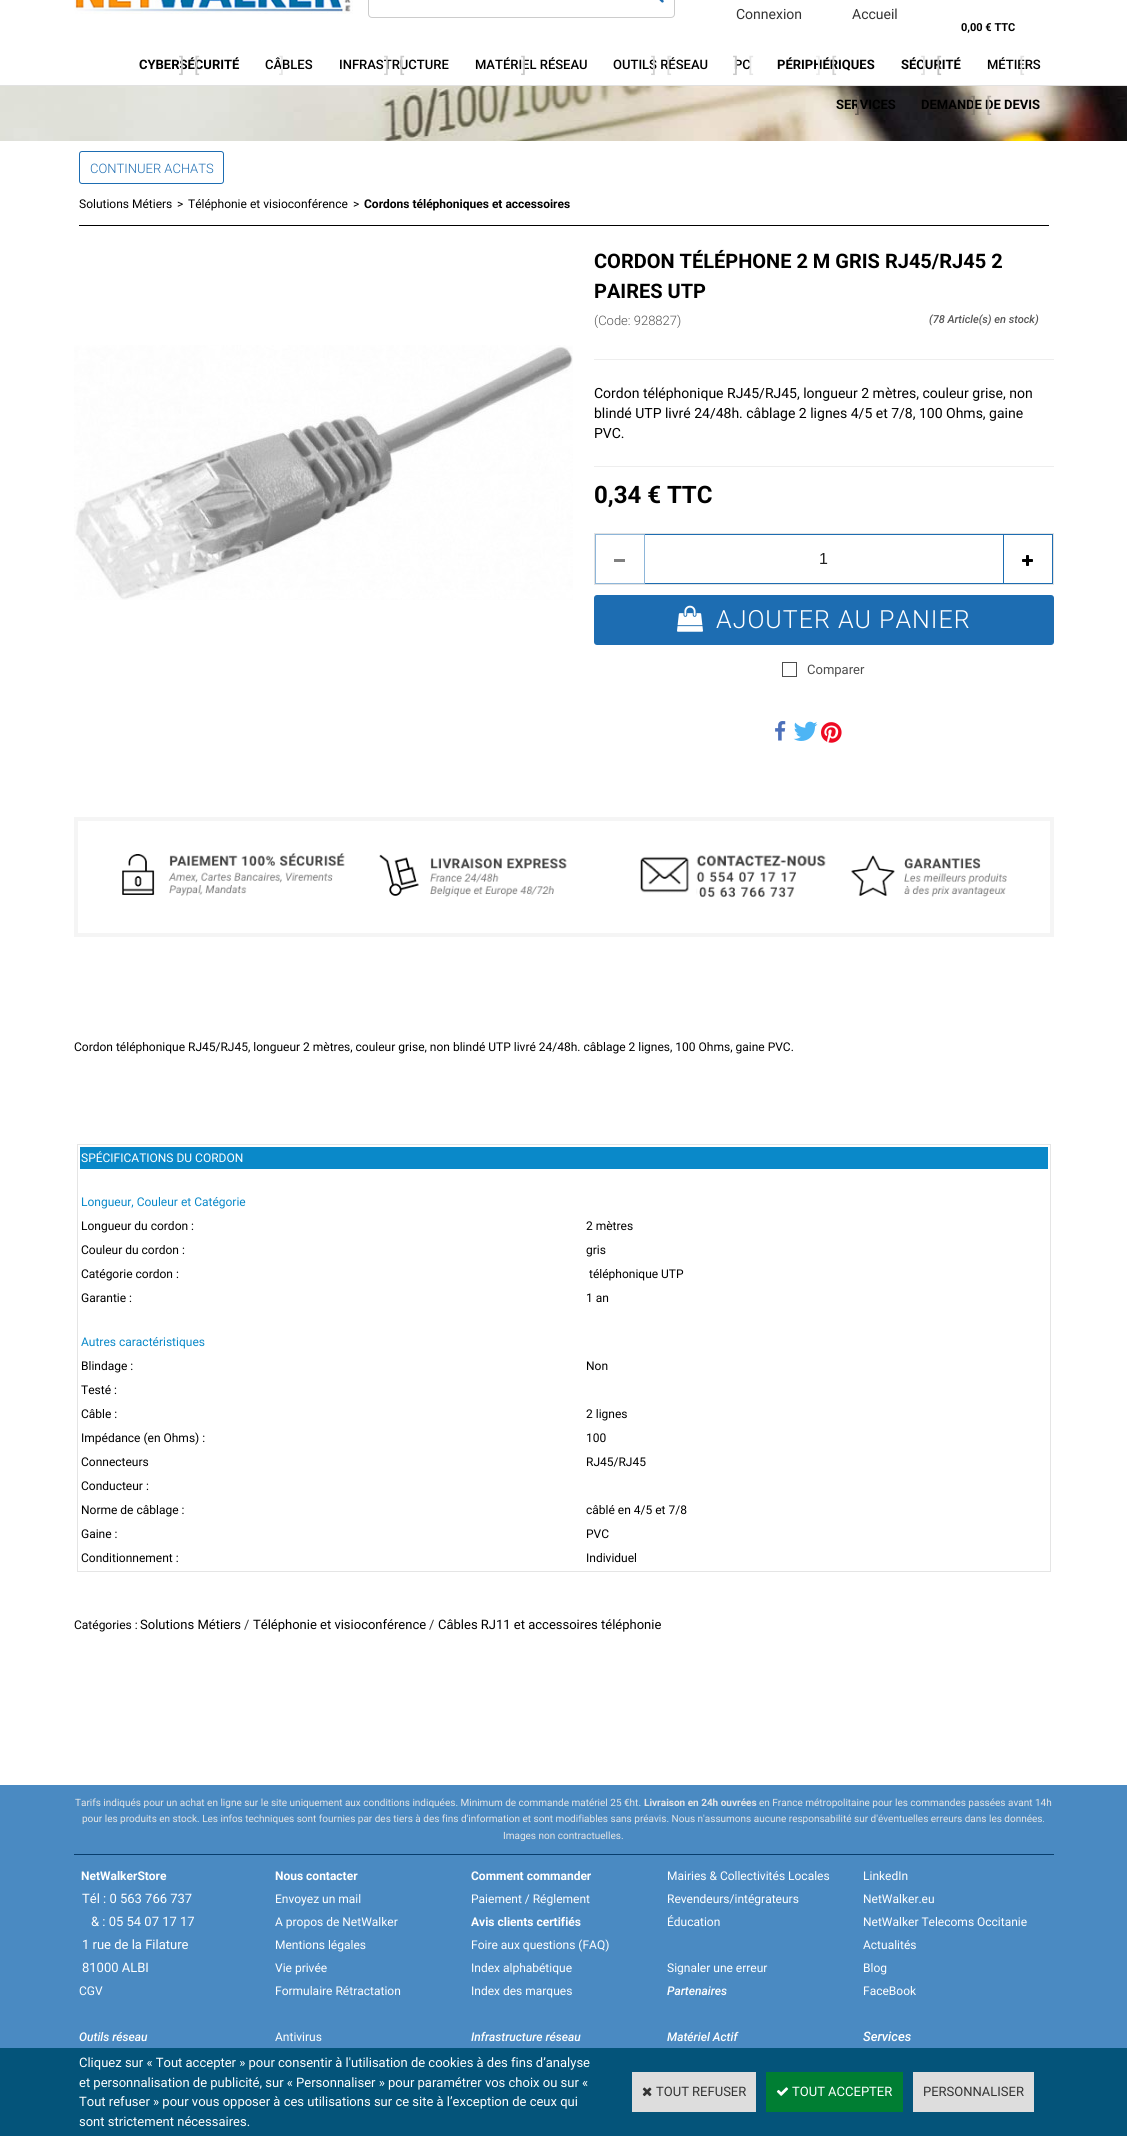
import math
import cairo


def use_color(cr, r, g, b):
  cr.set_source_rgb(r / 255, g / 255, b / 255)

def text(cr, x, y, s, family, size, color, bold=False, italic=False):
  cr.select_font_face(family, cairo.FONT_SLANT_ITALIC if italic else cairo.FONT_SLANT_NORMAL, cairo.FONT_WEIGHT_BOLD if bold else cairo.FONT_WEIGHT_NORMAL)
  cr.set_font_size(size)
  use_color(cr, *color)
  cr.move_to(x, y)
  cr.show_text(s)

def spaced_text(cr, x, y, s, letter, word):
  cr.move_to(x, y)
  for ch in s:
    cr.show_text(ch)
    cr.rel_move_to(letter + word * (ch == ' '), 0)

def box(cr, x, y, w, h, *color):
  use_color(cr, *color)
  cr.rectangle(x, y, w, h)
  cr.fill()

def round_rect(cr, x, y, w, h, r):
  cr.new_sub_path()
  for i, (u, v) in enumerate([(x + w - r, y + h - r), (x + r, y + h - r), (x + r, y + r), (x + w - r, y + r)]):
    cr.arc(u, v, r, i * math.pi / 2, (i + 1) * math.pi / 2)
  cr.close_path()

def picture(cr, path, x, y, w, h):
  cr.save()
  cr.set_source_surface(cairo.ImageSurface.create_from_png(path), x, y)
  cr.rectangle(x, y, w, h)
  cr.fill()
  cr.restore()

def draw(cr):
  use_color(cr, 255, 255, 255)
  cr.paint()
  picture(cr, "img_01.png", 0, 86, 1127, 55)
  box(cr, 0, 85, 1127, 1, 226, 226, 226)
  picture(cr, "img_02.png", 74, 0, 279, 14)
  round_rect(cr, 368.5, -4.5, 306, 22, 3.5)
  use_color(cr, 204, 204, 204)
  cr.set_line_width(1)
  cr.stroke()
  picture(cr, "img_03.png", 659, 0, 5, 3)
  box(cr, 79, 225, 970, 1, 0, 0, 0)
  round_rect(cr, 79.5, 151.5, 144, 32, 2.5)
  use_color(cr, 29, 109, 178)
  cr.stroke()
  picture(cr, "img_04.png", 74, 345, 499, 255)
  box(cr, 594, 359, 460, 1, 238, 238, 238)
  box(cr, 594, 466, 460, 1, 238, 238, 238)
  cr.rectangle(594.5, 533.5, 459, 51)
  use_color(cr, 227, 227, 227)
  cr.stroke()
  cr.rectangle(595.5, 534.5, 49, 49)
  use_color(cr, 142, 182, 217)
  cr.stroke()
  box(cr, 614, 559, 11, 3, 128, 128, 128)
  box(cr, 645, 534, 358, 1, 29, 109, 178)
  box(cr, 645, 583, 358, 1, 29, 109, 178)
  cr.rectangle(1003.5, 534.5, 49, 49)
  cr.stroke()
  picture(cr, "img_05.png", 1022, 555, 11, 11)
  round_rect(cr, 594, 595, 460, 50, 3)
  cr.fill()
  picture(cr, "img_06.png", 677, 605, 26, 27)
  cr.rectangle(782.5, 662.5, 14, 14)
  use_color(cr, 77, 77, 77)
  cr.stroke()
  picture(cr, "img_07.png", 775, 721, 11, 20)
  picture(cr, "img_08.png", 793, 721, 25, 20)
  picture(cr, "img_09.png", 821, 722, 21, 21)
  cr.rectangle(76, 819, 976, 116)
  use_color(cr, 245, 245, 245)
  cr.set_line_width(4)
  cr.stroke()
  picture(cr, "img_10.png", 122, 853, 223, 43)
  picture(cr, "img_11.png", 379, 854, 188, 43)
  picture(cr, "img_12.png", 640, 855, 186, 43)
  picture(cr, "img_13.png", 851, 855, 156, 42)
  cr.rectangle(77.5, 1144.5, 973, 427)
  use_color(cr, 229, 229, 229)
  cr.set_line_width(1)
  cr.stroke()
  box(cr, 80, 1147, 968, 22, 10, 137, 201)
  box(cr, 0, 1785, 1127, 263, 74, 138, 194)
  box(cr, 74, 1854, 980, 1, 8, 62, 109)
  box(cr, 0, 2048, 1127, 88, 4, 84, 122)
  box(cr, 632, 2072, 124, 40, 221, 221, 221)
  picture(cr, "img_14.png", 642, 2087, 10, 10)
  box(cr, 766, 2072, 137, 40, 0, 126, 51)
  picture(cr, "img_15.png", 776, 2087, 13, 9)
  box(cr, 913, 2072, 121, 40, 221, 221, 221)
  text(cr, 736, 19, "Connexion", "Roboto", 14, (51, 51, 51))
  text(cr, 852, 19, "Accueil", "Roboto", 14, (51, 51, 51))
  text(cr, 961, 31, "0,00 € TTC", "Roboto", 11, (0, 0, 0), bold=True)
  text(cr, 139, 69, "CYBERSÉCURITÉ", "Roboto", 13, (0, 0, 0), bold=True)
  text(cr, 179, 72, "]", "Roboto", 20, (201, 201, 201))
  text(cr, 194, 72, "[", "Roboto", 20, (201, 201, 201))
  text(cr, 265, 69, "CÂBLES", "Roboto Medium", 13, (0, 0, 0))
  text(cr, 279, 72, "]", "Roboto", 20, (230, 230, 230))
  text(cr, 339, 69, "INFRASTRUCTURE", "Roboto Medium", 13, (0, 0, 0))
  text(cr, 384, 72, "]", "Roboto", 20, (210, 210, 210))
  text(cr, 399, 72, "[", "Roboto", 20, (201, 201, 201))
  text(cr, 475, 69, "MATÉRIEL RÉSEAU", "Roboto Medium", 13, (0, 0, 0))
  text(cr, 521, 72, "]", "Roboto", 20, (201, 201, 201))
  text(cr, 613, 69, "OUTILS RÉSEAU", "Roboto Medium", 13, (0, 0, 0))
  text(cr, 651, 72, "]", "Roboto", 20, (210, 210, 210))
  text(cr, 666, 72, "[", "Roboto", 20, (224, 224, 224))
  text(cr, 734, 69, "PC", "Roboto Medium", 13, (0, 0, 0))
  text(cr, 733, 72, "]", "Roboto", 20, (201, 201, 201))
  text(cr, 748, 72, "[", "Roboto", 20, (230, 230, 230))
  text(cr, 777, 69, "PÉRIPHÉRIQUES", "Roboto", 13, (0, 0, 0), bold=True)
  text(cr, 816, 72, "]", "Roboto", 20, (236, 236, 236))
  text(cr, 831, 72, "[", "Roboto", 20, (210, 210, 210))
  text(cr, 901, 69, "SÉCURITÉ", "Roboto", 13, (0, 0, 0), bold=True)
  text(cr, 921, 72, "]", "Roboto", 20, (224, 224, 224))
  text(cr, 936, 72, "[", "Roboto", 20, (193, 193, 193))
  text(cr, 987, 69, "MÉTIERS", "Roboto Medium", 13, (0, 0, 0))
  text(cr, 1019, 72, "[", "Roboto", 20, (224, 224, 224))
  text(cr, 836, 109, "SERVICES", "Roboto", 13, (0, 0, 0), bold=True)
  text(cr, 855, 112, "]", "Roboto", 20, (102, 93, 83))
  text(cr, 921, 109, "DEMANDE DE DEVIS", "Roboto", 13, (0, 0, 0), bold=True)
  text(cr, 971, 112, "]", "Roboto", 20, (129, 122, 109))
  text(cr, 986, 112, "[", "Roboto", 20, (179, 172, 165))
  text(cr, 90, 173, "CONTINUER ACHATS", "Roboto Light", 13, (29, 109, 178))
  text(cr, 79, 208, "Solutions Métiers", "Roboto", 12, (0, 0, 0))
  text(cr, 177, 208, ">", "Roboto", 12, (0, 0, 0))
  text(cr, 188, 208, "Téléphonie et visioconférence", "Roboto", 12, (0, 0, 0))
  text(cr, 353, 208, ">", "Roboto", 12, (0, 0, 0))
  text(cr, 364, 208, "Cordons téléphoniques et accessoires", "Roboto", 12, (0, 0, 0), bold=True)
  text(cr, 594, 268, "CORDON TÉLÉPHONE 2 M GRIS RJ45/RJ45 2", "Roboto", 20, (0, 0, 0), bold=True)
  text(cr, 594, 298, "PAIRES UTP", "Roboto", 20, (0, 0, 0), bold=True)
  text(cr, 594, 325, "(Code: 928827)", "Roboto Light", 13, (85, 85, 85))
  text(cr, 929, 323, "(78 Article(s) en stock)", "Roboto Medium", 11, (85, 85, 85), italic=True)
  text(cr, 594, 398, "Cordon téléphonique RJ45/RJ45, longueur 2 mètres, couleur grise, non", "Roboto", 14, (0, 0, 0))
  text(cr, 594, 418, "blindé UTP livré 24/48h. câblage 2 lignes 4/5 et 7/8, 100 Ohms, gaine", "Roboto", 14, (0, 0, 0))
  text(cr, 594, 438, "PVC.", "Roboto", 14, (0, 0, 0))
  text(cr, 594, 503, "0,34 € TTC", "Roboto", 24, (0, 0, 0), bold=True)
  text(cr, 819, 564, "1", "Liberation Sans", 16, (33, 33, 33))
  cr.select_font_face("Roboto Light")
  cr.set_font_size(25)
  use_color(cr, 255, 255, 255)
  spaced_text(cr, 716, 628, "AJOUTER AU PANIER", 1, 0)
  text(cr, 807, 674, "Comparer", "Roboto", 13, (77, 77, 77))
  text(cr, 74, 1051, "Cordon téléphonique RJ45/RJ45, longueur 2 mètres, couleur grise, non blindé UTP livré 24/48h. câblage 2 lignes, 100 Ohms, gaine PVC.", "Roboto", 12, (0, 0, 0))
  text(cr, 81, 1162, "SPÉCIFICATIONS DU CORDON", "Roboto", 12, (255, 255, 255))
  text(cr, 81, 1206, "Longueur, Couleur et Catégorie", "Roboto", 12, (10, 137, 201))
  text(cr, 81, 1230, "Longueur du cordon :", "Roboto", 12, (0, 0, 0))
  text(cr, 586, 1230, "2 mètres", "Roboto", 12, (0, 0, 0))
  text(cr, 81, 1254, "Couleur du cordon :", "Roboto", 12, (0, 0, 0))
  text(cr, 586, 1254, "gris", "Roboto", 12, (0, 0, 0))
  text(cr, 81, 1278, "Catégorie cordon :", "Roboto", 12, (0, 0, 0))
  text(cr, 589, 1278, "téléphonique UTP", "Roboto", 12, (0, 0, 0))
  text(cr, 81, 1302, "Garantie :", "Roboto", 12, (0, 0, 0))
  text(cr, 586, 1302, "1 an", "Roboto", 12, (0, 0, 0))
  text(cr, 81, 1346, "Autres caractéristiques", "Roboto", 12, (10, 137, 201))
  text(cr, 81, 1370, "Blindage :", "Roboto", 12, (0, 0, 0))
  text(cr, 586, 1370, "Non", "Roboto", 12, (0, 0, 0))
  text(cr, 81, 1394, "Testé :", "Roboto", 12, (0, 0, 0))
  text(cr, 81, 1418, "Câble :", "Roboto", 12, (0, 0, 0))
  text(cr, 586, 1418, "2 lignes", "Roboto", 12, (0, 0, 0))
  text(cr, 81, 1442, "Impédance (en Ohms) :", "Roboto", 12, (0, 0, 0))
  text(cr, 586, 1442, "100", "Roboto", 12, (0, 0, 0))
  text(cr, 81, 1466, "Connecteurs", "Roboto", 12, (0, 0, 0))
  text(cr, 586, 1466, "RJ45/RJ45", "Roboto", 12, (0, 0, 0))
  text(cr, 81, 1490, "Conducteur :", "Roboto", 12, (0, 0, 0))
  text(cr, 81, 1514, "Norme de câblage :", "Roboto", 12, (0, 0, 0))
  text(cr, 586, 1514, "câblé en 4/5 et 7/8", "Roboto", 12, (0, 0, 0))
  text(cr, 81, 1538, "Gaine :", "Roboto", 12, (0, 0, 0))
  text(cr, 586, 1538, "PVC", "Roboto", 12, (0, 0, 0))
  text(cr, 81, 1562, "Conditionnement :", "Roboto", 12, (0, 0, 0))
  text(cr, 586, 1562, "Individuel", "Roboto", 12, (0, 0, 0))
  text(cr, 74, 1629, "Catégories :", "Roboto", 12, (0, 0, 0))
  text(cr, 140, 1629, "Solutions Métiers", "Roboto", 13, (0, 0, 0))
  text(cr, 244, 1629, "/", "Roboto", 13, (51, 51, 51))
  text(cr, 253, 1629, "Téléphonie et visioconférence", "Roboto", 13, (0, 0, 0))
  text(cr, 429, 1629, "/", "Roboto", 13, (51, 51, 51))
  text(cr, 438, 1629, "Câbles RJ11 et accessoires téléphonie", "Roboto", 13, (0, 0, 0))
  text(cr, 75, 1806, "Tarifs indiqués pour un achat en ligne sur le site uniquement aux conditions indiquées. Minimum de commande matériel 25 €ht.", "Roboto", 10, (230, 230, 230))
  text(cr, 644, 1806, "Livraison en 24h ouvrées", "Roboto", 10, (230, 230, 230), bold=True)
  text(cr, 759, 1806, "en France métropolitaine pour les commandes passées avant 14h", "Roboto", 10, (230, 230, 230))
  text(cr, 82, 1822, "pour les produits en stock. Les infos techniques sont fournies par des tiers à des fins d'information et sont modifiables sans préavis. Nous n'assumons aucune responsabilité sur d'éventuelles erreurs dans les données.", "Roboto", 10, (230, 230, 230))
  text(cr, 503, 1839, "Images non contractuelles.", "Roboto", 10, (230, 230, 230))
  text(cr, 81, 1880, "NetWalkerStore", "Roboto", 12, (255, 255, 255), bold=True)
  text(cr, 82, 1903, "Tél : 0 563 766 737", "Roboto", 13, (255, 255, 255))
  text(cr, 91, 1926, "& : 05 54 07 17 17", "Roboto", 13, (255, 255, 255))
  text(cr, 82, 1949, "1 rue de la Filature", "Roboto", 13, (255, 255, 255))
  text(cr, 82, 1972, "81000 ALBI", "Roboto", 13, (255, 255, 255))
  text(cr, 79, 1995, "CGV", "Roboto", 12, (255, 255, 255))
  text(cr, 79, 2041, "Outils réseau", "Roboto Medium", 12, (255, 255, 255), italic=True)
  text(cr, 275, 1880, "Nous contacter", "Roboto", 12, (255, 255, 255), bold=True)
  text(cr, 275, 1903, "Envoyez un mail", "Roboto", 12, (255, 255, 255))
  text(cr, 275, 1926, "A propos de NetWalker", "Roboto", 12, (255, 255, 255))
  text(cr, 275, 1949, "Mentions légales", "Roboto", 12, (255, 255, 255))
  text(cr, 275, 1972, "Vie privée", "Roboto", 12, (255, 255, 255))
  text(cr, 275, 1995, "Formulaire Rétractation", "Roboto", 12, (255, 255, 255))
  text(cr, 275, 2041, "Antivirus", "Roboto", 12, (255, 255, 255))
  text(cr, 471, 1880, "Comment commander", "Roboto", 12, (255, 255, 255), bold=True)
  text(cr, 471, 1903, "Paiement / Réglement", "Roboto", 12, (255, 255, 255))
  text(cr, 471, 1926, "Avis clients certifiés", "Roboto", 12, (255, 255, 255), bold=True)
  text(cr, 471, 1949, "Foire aux questions (FAQ)", "Roboto", 12, (255, 255, 255))
  text(cr, 471, 1972, "Index alphabétique", "Roboto", 12, (255, 255, 255))
  text(cr, 471, 1995, "Index des marques", "Roboto", 12, (255, 255, 255))
  text(cr, 471, 2041, "Infrastructure réseau", "Roboto Medium", 12, (255, 255, 255), italic=True)
  text(cr, 667, 1880, "Mairies & Collectivités Locales", "Roboto", 12, (255, 255, 255))
  text(cr, 667, 1903, "Revendeurs/intégrateurs", "Roboto", 12, (255, 255, 255))
  text(cr, 667, 1926, "Éducation", "Roboto", 12, (255, 255, 255))
  text(cr, 667, 1972, "Signaler une erreur", "Roboto", 12, (255, 255, 255))
  text(cr, 667, 1995, "Partenaires", "Roboto Medium", 12, (255, 255, 255), italic=True)
  text(cr, 667, 2041, "Matériel Actif", "Roboto Medium", 12, (255, 255, 255), italic=True)
  text(cr, 863, 1880, "LinkedIn", "Roboto", 12, (255, 255, 255))
  text(cr, 863, 1903, "NetWalker.eu", "Roboto", 12, (255, 255, 255))
  text(cr, 863, 1926, "NetWalker Telecoms Occitanie", "Roboto", 12, (255, 255, 255))
  text(cr, 863, 1949, "Actualités", "Roboto", 12, (255, 255, 255))
  text(cr, 863, 1972, "Blog", "Roboto", 12, (255, 255, 255))
  text(cr, 863, 1995, "FaceBook", "Roboto", 12, (255, 255, 255))
  text(cr, 863, 2041, "Services", "Roboto Medium", 13, (255, 255, 255), italic=True)
  text(cr, 79, 2067, "Cliquez sur « Tout accepter » pour consentir à l'utilisation de cookies à des fins d’analyse", "Roboto", 13, (255, 255, 255))
  text(cr, 79, 2087, "et personnalisation de publicité, sur « Personnaliser » pour paramétrer vos choix ou sur «", "Roboto", 13, (255, 255, 255))
  text(cr, 79, 2106, "Tout refuser » pour vous opposer à ces utilisations sur ce site à l’exception de ceux qui", "Roboto", 13, (255, 255, 255))
  text(cr, 79, 2126, "sont strictement nécessaires.", "Roboto", 13, (255, 255, 255))
  text(cr, 656, 2096, "TOUT REFUSER", "Roboto", 13, (51, 51, 51))
  text(cr, 792, 2096, "TOUT ACCEPTER", "Roboto", 13, (255, 255, 255))
  text(cr, 923, 2096, "PERSONNALISER", "Roboto", 13, (51, 51, 51))


surface = cairo.ImageSurface(cairo.FORMAT_RGB24, 1127, 2136)
cr = cairo.Context(surface)
options = cairo.FontOptions()
options.set_hint_metrics(cairo.HINT_METRICS_OFF)
options.set_hint_style(cairo.HINT_STYLE_NONE)
cr.set_font_options(options)
cr.set_miter_limit(4)
draw(cr)
surface.write_to_png("out.png")
